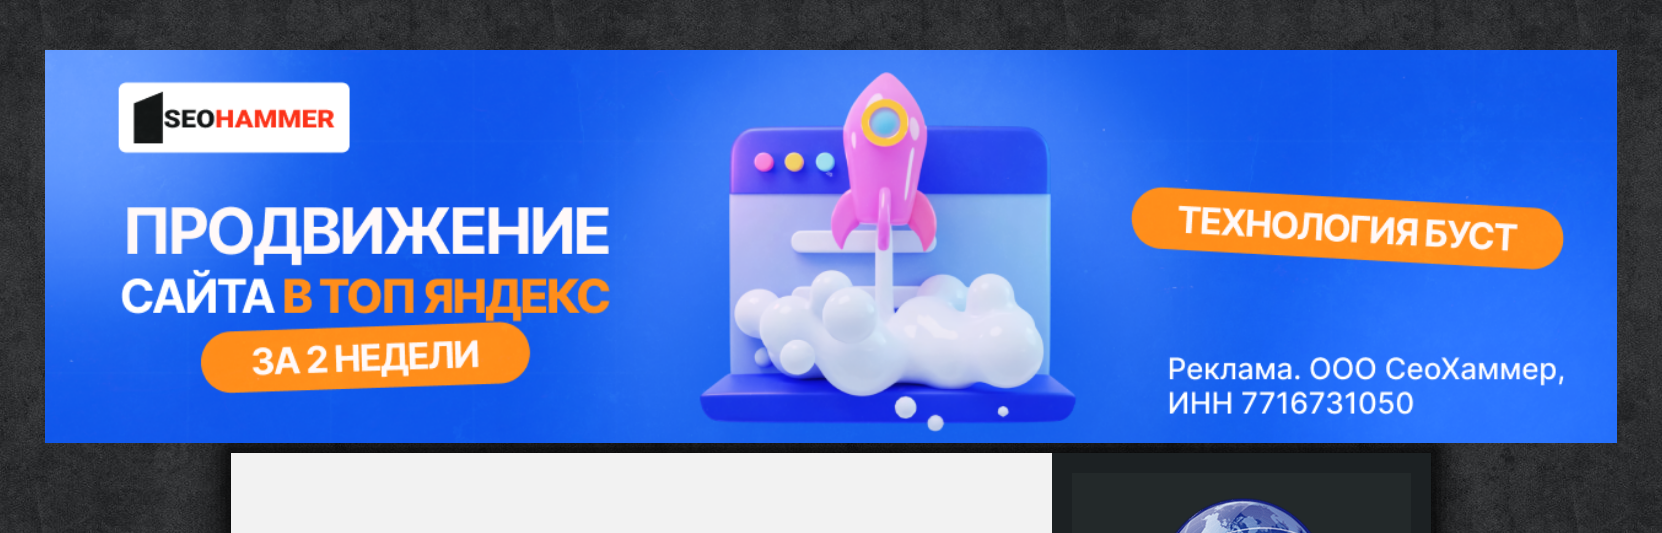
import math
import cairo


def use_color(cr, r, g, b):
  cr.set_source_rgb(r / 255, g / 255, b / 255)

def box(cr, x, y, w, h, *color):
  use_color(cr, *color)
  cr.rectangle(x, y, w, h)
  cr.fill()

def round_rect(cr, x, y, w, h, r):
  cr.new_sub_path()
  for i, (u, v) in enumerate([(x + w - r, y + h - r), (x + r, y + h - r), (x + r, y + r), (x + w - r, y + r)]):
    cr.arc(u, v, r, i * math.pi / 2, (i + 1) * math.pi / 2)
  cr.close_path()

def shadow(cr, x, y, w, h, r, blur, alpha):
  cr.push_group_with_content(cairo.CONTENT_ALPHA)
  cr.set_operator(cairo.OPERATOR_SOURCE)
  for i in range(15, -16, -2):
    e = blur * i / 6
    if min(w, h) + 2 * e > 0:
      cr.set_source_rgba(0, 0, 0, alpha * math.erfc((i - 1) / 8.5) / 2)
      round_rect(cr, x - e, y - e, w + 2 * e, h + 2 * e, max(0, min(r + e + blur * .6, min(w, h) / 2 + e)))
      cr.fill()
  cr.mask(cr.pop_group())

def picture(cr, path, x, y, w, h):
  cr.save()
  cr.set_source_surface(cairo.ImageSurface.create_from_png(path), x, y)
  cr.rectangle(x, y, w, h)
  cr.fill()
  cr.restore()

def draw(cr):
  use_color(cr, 255, 255, 255)
  cr.paint()
  picture(cr, "img_01.png", 0, 0, 1662, 533)
  use_color(cr, 0, 0, 0)
  shadow(cr, 223, 445, 1216, 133, 0, 15, 1)
  picture(cr, "img_02.png", 45, 50, 1572, 393)
  box(cr, 231, 453, 821, 80, 242, 242, 242)
  box(cr, 1052, 453, 379, 80, 28, 33, 35)
  box(cr, 1072, 473, 339, 60, 35, 41, 42)
  picture(cr, "img_03.png", 1174, 498, 138, 35)


surface = cairo.ImageSurface(cairo.FORMAT_RGB24, 1662, 533)
cr = cairo.Context(surface)
options = cairo.FontOptions()
options.set_hint_metrics(cairo.HINT_METRICS_OFF)
options.set_hint_style(cairo.HINT_STYLE_NONE)
cr.set_font_options(options)
cr.set_miter_limit(4)
draw(cr)
surface.write_to_png("out.png")
